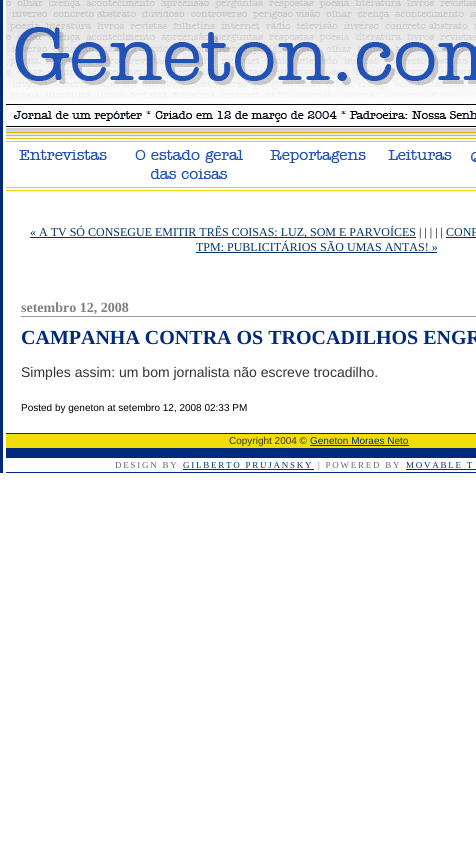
import math
import cairo


def use_color(cr, r, g, b):
  cr.set_source_rgb(r / 255, g / 255, b / 255)

def text(cr, x, y, s, family, size, color, bold=False, italic=False):
  cr.select_font_face(family, cairo.FONT_SLANT_ITALIC if italic else cairo.FONT_SLANT_NORMAL, cairo.FONT_WEIGHT_BOLD if bold else cairo.FONT_WEIGHT_NORMAL)
  cr.set_font_size(size)
  use_color(cr, *color)
  cr.move_to(x, y)
  cr.show_text(s)

def spaced_text(cr, x, y, s, letter, word):
  cr.move_to(x, y)
  for ch in s:
    cr.show_text(ch)
    cr.rel_move_to(letter + word * (ch == ' '), 0)

def box(cr, x, y, w, h, *color):
  use_color(cr, *color)
  cr.rectangle(x, y, w, h)
  cr.fill()

def picture(cr, path, x, y, w, h):
  cr.save()
  cr.set_source_surface(cairo.ImageSurface.create_from_png(path), x, y)
  cr.rectangle(x, y, w, h)
  cr.fill()
  cr.restore()

def draw(cr):
  use_color(cr, 255, 255, 255)
  cr.paint()
  box(cr, 0, 0, 3, 473, 0, 40, 123)
  picture(cr, "img_01.png", 6, 0, 470, 191)
  box(cr, 30, 237, 386, 1, 0, 51, 102)
  box(cr, 446, 237, 30, 1, 0, 51, 102)
  box(cr, 196, 252, 241, 1, 0, 51, 102)
  box(cr, 21, 316, 455, 1, 153, 153, 153)
  box(cr, 6, 433, 470, 40, 0, 40, 123)
  box(cr, 6, 434, 470, 14, 241, 222, 8)
  box(cr, 310, 445, 99, 1, 0, 51, 102)
  box(cr, 6, 458, 470, 14, 255, 255, 255)
  box(cr, 183, 469, 131, 1, 0, 51, 102)
  box(cr, 406, 469, 70, 1, 0, 51, 102)
  text(cr, 30, 236, "« A TV SÓ CONSEGUE EMITIR TRÊS COISAS: LUZ, SOM E PARVOÍCES", "Liberation Serif", 12, (0, 51, 102))
  text(cr, 419, 236, "| | | | |", "Liberation Serif", 12, (0, 0, 0))
  text(cr, 446, 236, "CONF", "Liberation Serif", 12, (0, 51, 102))
  text(cr, 196, 251, "TPM: PUBLICITÁRIOS SÃO UMAS ANTAS! »", "Liberation Serif", 12, (0, 51, 102))
  text(cr, 21, 312, "setembro 12, 2008", "Liberation Serif", 14, (128, 128, 128), bold=True)
  text(cr, 21, 344, "CAMPANHA CONTRA OS TROCADILHOS ENGR", "Liberation Serif", 20, (0, 40, 123), bold=True)
  text(cr, 21, 377, "Simples assim: um bom jornalista não escreve trocadilho.", "Liberation Sans", 14, (51, 51, 51))
  text(cr, 21, 411, "Posted by geneton at setembro 12, 2008 02:33 PM", "Liberation Sans", 10, (0, 0, 0))
  text(cr, 229, 444, "Copyright 2004 ©", "Liberation Sans", 10, (51, 51, 51))
  text(cr, 310, 444, "Geneton Moraes Neto", "Liberation Sans", 10, (0, 51, 102))
  cr.select_font_face("Liberation Serif")
  cr.set_font_size(9)
  use_color(cr, 102, 102, 102)
  spaced_text(cr, 115, 468, "DESIGN BY", 1.75, 0)
  use_color(cr, 0, 51, 102)
  spaced_text(cr, 183, 468, "GILBERTO PRUJANSKY", 1.75, 0)
  use_color(cr, 102, 102, 102)
  spaced_text(cr, 318, 468, "| POWERED BY", 1.75, 0)
  use_color(cr, 0, 51, 102)
  spaced_text(cr, 406, 468, "MOVABLE T", 1.75, 0)


surface = cairo.ImageSurface(cairo.FORMAT_RGB24, 476, 841)
cr = cairo.Context(surface)
options = cairo.FontOptions()
options.set_hint_metrics(cairo.HINT_METRICS_OFF)
options.set_hint_style(cairo.HINT_STYLE_NONE)
cr.set_font_options(options)
cr.set_miter_limit(4)
draw(cr)
surface.write_to_png("out.png")
